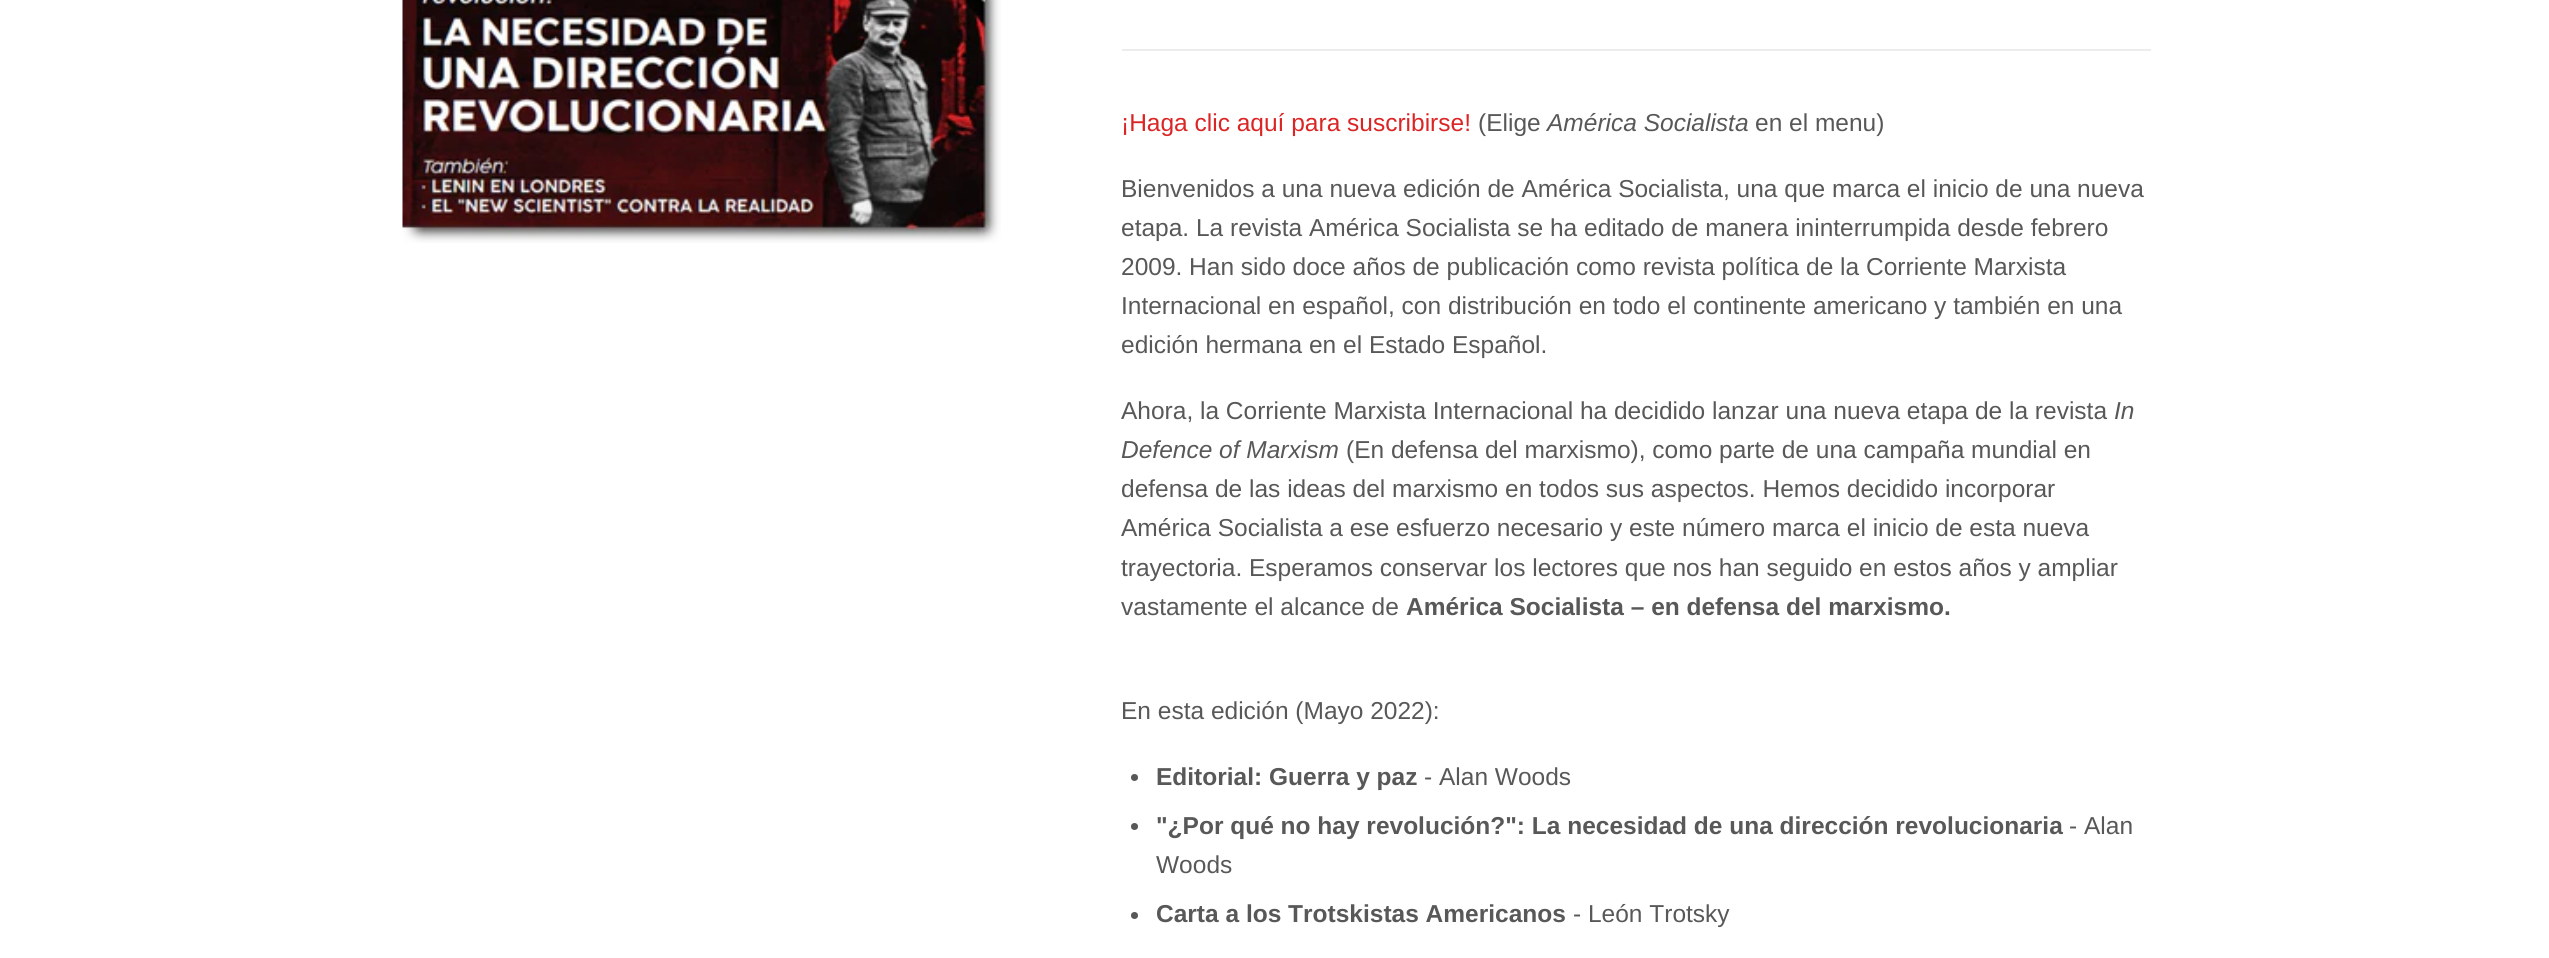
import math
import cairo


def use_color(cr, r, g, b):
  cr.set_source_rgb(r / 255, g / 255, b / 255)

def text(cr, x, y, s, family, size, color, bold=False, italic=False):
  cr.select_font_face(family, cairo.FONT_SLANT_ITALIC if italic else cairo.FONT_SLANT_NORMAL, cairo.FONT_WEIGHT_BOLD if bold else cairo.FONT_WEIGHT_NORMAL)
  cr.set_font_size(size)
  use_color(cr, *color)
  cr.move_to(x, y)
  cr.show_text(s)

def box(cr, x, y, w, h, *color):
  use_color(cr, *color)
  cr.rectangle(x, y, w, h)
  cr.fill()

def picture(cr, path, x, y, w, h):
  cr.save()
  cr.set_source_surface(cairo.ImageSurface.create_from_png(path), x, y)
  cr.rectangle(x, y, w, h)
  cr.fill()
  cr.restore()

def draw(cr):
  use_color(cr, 255, 255, 255)
  cr.paint()
  picture(cr, "img_01.png", 402, 0, 599, 243)
  box(cr, 1122, 49, 1029, 2, 236, 236, 236)
  use_color(cr, 88, 88, 88)
  cr.arc(1134.5, 777.5, 3.5, 0, 2 * math.pi)
  cr.fill()
  cr.arc(1134.5, 826.5, 3.5, 0, 2 * math.pi)
  cr.fill()
  cr.arc(1134.5, 915.5, 3.5, 0, 2 * math.pi)
  cr.fill()
  text(cr, 1121, 131, "¡Haga clic aquí para suscribirse!", "Liberation Sans", 24.5, (219, 37, 37))
  text(cr, 1478, 131, "(Elige", "Liberation Sans", 24.5, (88, 88, 88))
  text(cr, 1547, 131, "América Socialista", "Liberation Sans", 24.5, (88, 88, 88), italic=True)
  text(cr, 1755, 131, "en el menu)", "Liberation Sans", 24.5, (88, 88, 88))
  text(cr, 1121, 197, "Bienvenidos a una nueva edición de América Socialista, una que marca el inicio de una nueva", "Liberation Sans", 24.5, (88, 88, 88))
  text(cr, 1121, 236, "etapa. La revista América Socialista se ha editado de manera ininterrumpida desde febrero", "Liberation Sans", 24.5, (88, 88, 88))
  text(cr, 1121, 275, "2009. Han sido doce años de publicación como revista política de la Corriente Marxista", "Liberation Sans", 24.5, (88, 88, 88))
  text(cr, 1121, 314, "Internacional en español, con distribución en todo el continente americano y también en una", "Liberation Sans", 24.5, (88, 88, 88))
  text(cr, 1121, 353, "edición hermana en el Estado Español.", "Liberation Sans", 24.5, (88, 88, 88))
  text(cr, 1121, 419, "Ahora, la Corriente Marxista Internacional ha decidido lanzar una nueva etapa de la revista", "Liberation Sans", 24.5, (88, 88, 88))
  text(cr, 2114, 419, "In", "Liberation Sans", 24.5, (88, 88, 88), italic=True)
  text(cr, 1121, 458, "Defence of Marxism", "Liberation Sans", 24.5, (88, 88, 88), italic=True)
  text(cr, 1346, 458, "(En defensa del marxismo), como parte de una campaña mundial en", "Liberation Sans", 24.5, (88, 88, 88))
  text(cr, 1121, 497, "defensa de las ideas del marxismo en todos sus aspectos. Hemos decidido incorporar", "Liberation Sans", 24.5, (88, 88, 88))
  text(cr, 1121, 536, "América Socialista a ese esfuerzo necesario y este número marca el inicio de esta nueva", "Liberation Sans", 24.5, (88, 88, 88))
  text(cr, 1121, 576, "trayectoria. Esperamos conservar los lectores que nos han seguido en estos años y ampliar", "Liberation Sans", 24.5, (88, 88, 88))
  text(cr, 1121, 615, "vastamente el alcance de", "Liberation Sans", 24.5, (88, 88, 88))
  text(cr, 1406, 615, "América Socialista – en defensa del marxismo.", "Liberation Sans", 24.5, (88, 88, 88), bold=True)
  text(cr, 1121, 719, "En esta edición (Mayo 2022):", "Liberation Sans", 24.5, (88, 88, 88))
  text(cr, 1156, 785, "Editorial: Guerra y paz", "Liberation Sans", 24.5, (88, 88, 88), bold=True)
  text(cr, 1424, 785, "- Alan Woods", "Liberation Sans", 24.5, (88, 88, 88))
  text(cr, 1156, 834, "\"¿Por qué no hay revolución?\": La necesidad de una dirección revolucionaria", "Liberation Sans", 24.5, (88, 88, 88), bold=True)
  text(cr, 2069, 834, "- Alan", "Liberation Sans", 24.5, (88, 88, 88))
  text(cr, 1156, 873, "Woods", "Liberation Sans", 24.5, (88, 88, 88))
  text(cr, 1156, 922, "Carta a los Trotskistas Americanos", "Liberation Sans", 24.5, (88, 88, 88), bold=True)
  text(cr, 1573, 922, "- León Trotsky", "Liberation Sans", 24.5, (88, 88, 88))


surface = cairo.ImageSurface(cairo.FORMAT_RGB24, 2549, 958)
cr = cairo.Context(surface)
options = cairo.FontOptions()
options.set_hint_metrics(cairo.HINT_METRICS_OFF)
options.set_hint_style(cairo.HINT_STYLE_NONE)
cr.set_font_options(options)
cr.set_miter_limit(4)
draw(cr)
surface.write_to_png("out.png")
